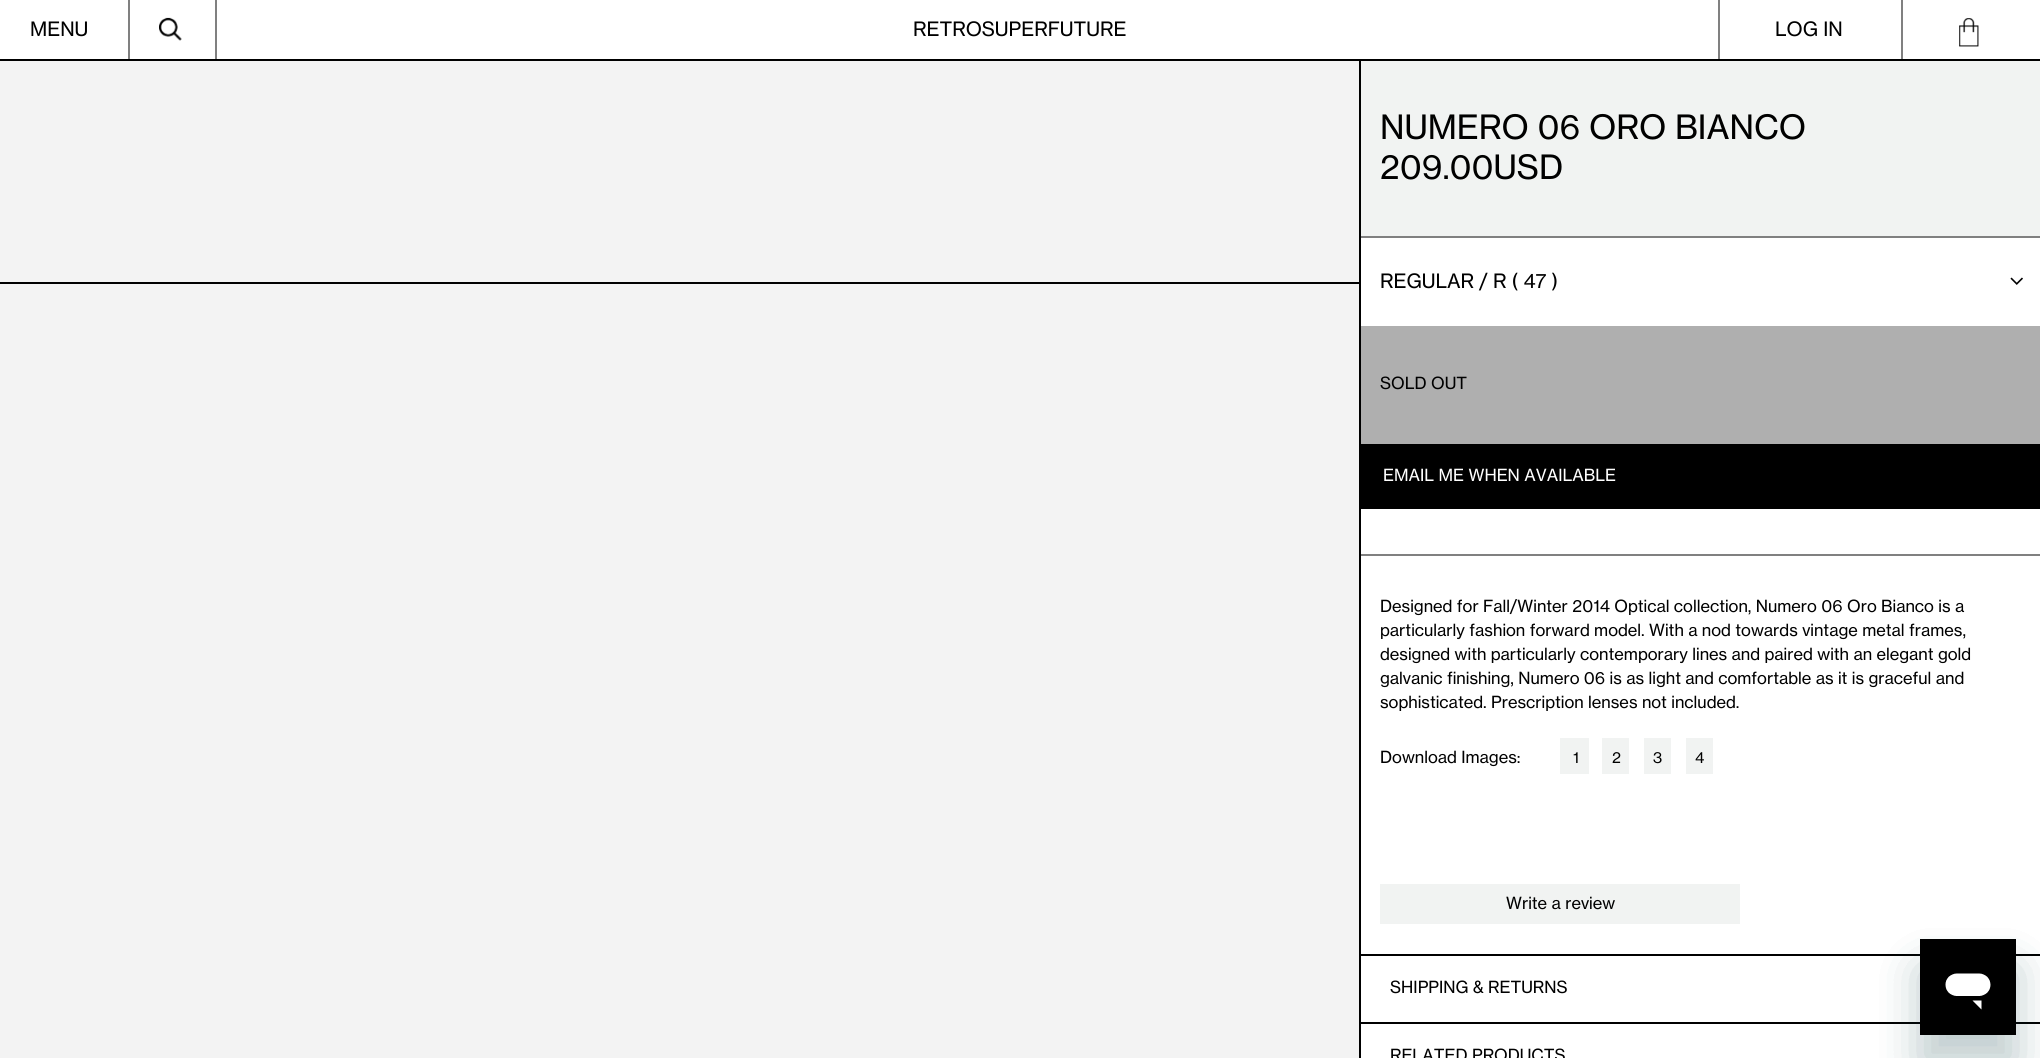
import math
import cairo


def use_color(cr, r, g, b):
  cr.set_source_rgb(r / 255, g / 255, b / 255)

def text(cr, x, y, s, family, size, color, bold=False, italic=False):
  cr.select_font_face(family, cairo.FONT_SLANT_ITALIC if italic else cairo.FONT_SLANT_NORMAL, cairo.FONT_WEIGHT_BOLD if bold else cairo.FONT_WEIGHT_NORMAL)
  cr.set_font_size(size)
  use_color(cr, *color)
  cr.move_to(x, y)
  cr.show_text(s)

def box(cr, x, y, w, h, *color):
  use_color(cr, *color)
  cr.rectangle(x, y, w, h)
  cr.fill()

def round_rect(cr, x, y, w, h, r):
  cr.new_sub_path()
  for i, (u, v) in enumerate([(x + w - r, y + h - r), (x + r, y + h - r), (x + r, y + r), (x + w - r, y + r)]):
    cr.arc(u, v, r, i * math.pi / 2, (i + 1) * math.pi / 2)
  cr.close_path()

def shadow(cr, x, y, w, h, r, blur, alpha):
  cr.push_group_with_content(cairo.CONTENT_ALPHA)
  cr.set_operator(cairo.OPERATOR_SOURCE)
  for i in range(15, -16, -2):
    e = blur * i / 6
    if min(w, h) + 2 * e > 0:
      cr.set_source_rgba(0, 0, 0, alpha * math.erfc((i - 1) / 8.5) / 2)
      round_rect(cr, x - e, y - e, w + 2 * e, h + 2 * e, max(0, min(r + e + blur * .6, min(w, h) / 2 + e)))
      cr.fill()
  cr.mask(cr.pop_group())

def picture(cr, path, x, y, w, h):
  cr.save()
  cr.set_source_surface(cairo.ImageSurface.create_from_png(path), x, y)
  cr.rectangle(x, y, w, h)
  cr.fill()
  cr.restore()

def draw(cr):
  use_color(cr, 0, 0, 0)
  cr.paint()
  box(cr, 0, 0, 2040, 59, 255, 255, 255)
  box(cr, 128, 0, 2, 59, 128, 128, 128)
  box(cr, 215, 0, 2, 59, 128, 128, 128)
  picture(cr, "img_01.png", 159, 17, 23, 24)
  box(cr, 1718, 0, 2, 59, 128, 128, 128)
  box(cr, 1901, 0, 2, 59, 128, 128, 128)
  picture(cr, "img_02.png", 1959, 18, 20, 29)
  box(cr, 0, 61, 1359, 221, 243, 243, 243)
  box(cr, 0, 284, 1359, 774, 243, 243, 243)
  box(cr, 1361, 238, 679, 820, 255, 255, 255)
  box(cr, 1361, 61, 679, 175, 241, 243, 242)
  box(cr, 1361, 236, 679, 2, 128, 128, 128)
  picture(cr, "img_03.png", 2010, 277, 13, 8)
  box(cr, 1361, 326, 679, 118, 175, 175, 175)
  box(cr, 1361, 444, 679, 65, 0, 0, 0)
  box(cr, 1361, 554, 679, 2, 128, 128, 128)
  box(cr, 1560, 738, 29, 36, 241, 243, 242)
  box(cr, 1602, 738, 27, 36, 241, 243, 242)
  box(cr, 1644, 738, 27, 36, 241, 243, 242)
  box(cr, 1686, 738, 27, 36, 241, 243, 242)
  box(cr, 1380, 884, 360, 40, 241, 243, 242)
  box(cr, 1361, 954, 679, 2, 0, 0, 0)
  box(cr, 1361, 1022, 679, 2, 0, 0, 0)
  use_color(cr, 23, 73, 77)
  shadow(cr, 1920, 969, 96, 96, 0, 22.5, 0.15)
  picture(cr, "img_04.png", 1920, 939, 96, 96)
  cr.save()
  cr.set_fill_rule(cairo.FILL_RULE_EVEN_ODD)
  cr.new_path()
  cr.move_to(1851, 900)
  cr.line_to(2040, 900)
  cr.line_to(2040, 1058)
  cr.line_to(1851, 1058)
  cr.close_path()
  cr.move_to(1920, 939)
  cr.line_to(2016, 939)
  cr.line_to(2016, 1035)
  cr.line_to(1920, 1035)
  cr.close_path()
  cr.clip()
  shadow(cr, 1920, 969, 96, 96, 0, 22.5, 0.15)
  cr.restore()
  text(cr, 30, 36, "MENU", "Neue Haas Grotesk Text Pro", 19.5, (0, 0, 0))
  text(cr, 913, 36, "RETROSUPERFUTURE", "Neue Haas Grotesk Text Pro", 19.5, (0, 0, 0))
  text(cr, 1775, 36, "LOG IN", "Neue Haas Grotesk Text Pro", 19.5, (0, 0, 0))
  text(cr, 1380, 139, "NUMERO 06 ORO BIANCO", "Neue Haas Grotesk Text Pro", 33, (0, 0, 0))
  text(cr, 1380, 179, "209.00USD", "Neue Haas Grotesk Text Pro", 33, (0, 0, 0))
  text(cr, 1380, 288, "REGULAR / R ( 47 )", "Neue Haas Grotesk Text Pro", 19.5, (0, 0, 0))
  text(cr, 1380, 389, "SOLD OUT", "Neue Haas Grotesk Text Pro", 16.5, (0, 0, 0))
  text(cr, 1383, 481, "EMAIL ME WHEN AVAILABLE", "Neue Haas Grotesk Text Pro", 16.5, (255, 255, 255))
  text(cr, 1380, 612, "Designed for Fall/Winter 2014 Optical collection, Numero 06 Oro Bianco is a", "Neue Haas Grotesk Text Pro", 16.5, (0, 0, 0))
  text(cr, 1380, 636, "particularly fashion forward model. With a nod towards vintage metal frames,", "Neue Haas Grotesk Text Pro", 16.5, (0, 0, 0))
  text(cr, 1380, 660, "designed with particularly contemporary lines and paired with an elegant gold", "Neue Haas Grotesk Text Pro", 16.5, (0, 0, 0))
  text(cr, 1380, 684, "galvanic finishing, Numero 06 is as light and comfortable as it is graceful and", "Neue Haas Grotesk Text Pro", 16.5, (0, 0, 0))
  text(cr, 1380, 708, "sophisticated. Prescription lenses not included.", "Neue Haas Grotesk Text Pro", 16.5, (0, 0, 0))
  text(cr, 1380, 763, "Download Images:", "Neue Haas Grotesk Text Pro", 16.5, (0, 0, 0))
  text(cr, 1573, 763, "1", "Neue Haas Grotesk Text Pro", 15, (0, 0, 0))
  text(cr, 1612, 763, "2", "Neue Haas Grotesk Text Pro", 15, (0, 0, 0))
  text(cr, 1653, 763, "3", "Neue Haas Grotesk Text Pro", 15, (0, 0, 0))
  text(cr, 1695, 763, "4", "Neue Haas Grotesk Text Pro", 15, (0, 0, 0))
  text(cr, 1506, 909, "Write a review", "Neue Haas Grotesk Text Pro", 16.5, (0, 0, 0))
  text(cr, 1390, 993, "SHIPPING & RETURNS", "Neue Haas Grotesk Text Pro", 16.5, (0, 0, 0))
  text(cr, 1390, 1061, "RELATED PRODUCTS", "Neue Haas Grotesk Text Pro", 16.5, (0, 0, 0))


surface = cairo.ImageSurface(cairo.FORMAT_RGB24, 2040, 1058)
cr = cairo.Context(surface)
options = cairo.FontOptions()
options.set_hint_metrics(cairo.HINT_METRICS_OFF)
options.set_hint_style(cairo.HINT_STYLE_NONE)
cr.set_font_options(options)
cr.set_miter_limit(4)
draw(cr)
surface.write_to_png("out.png")
